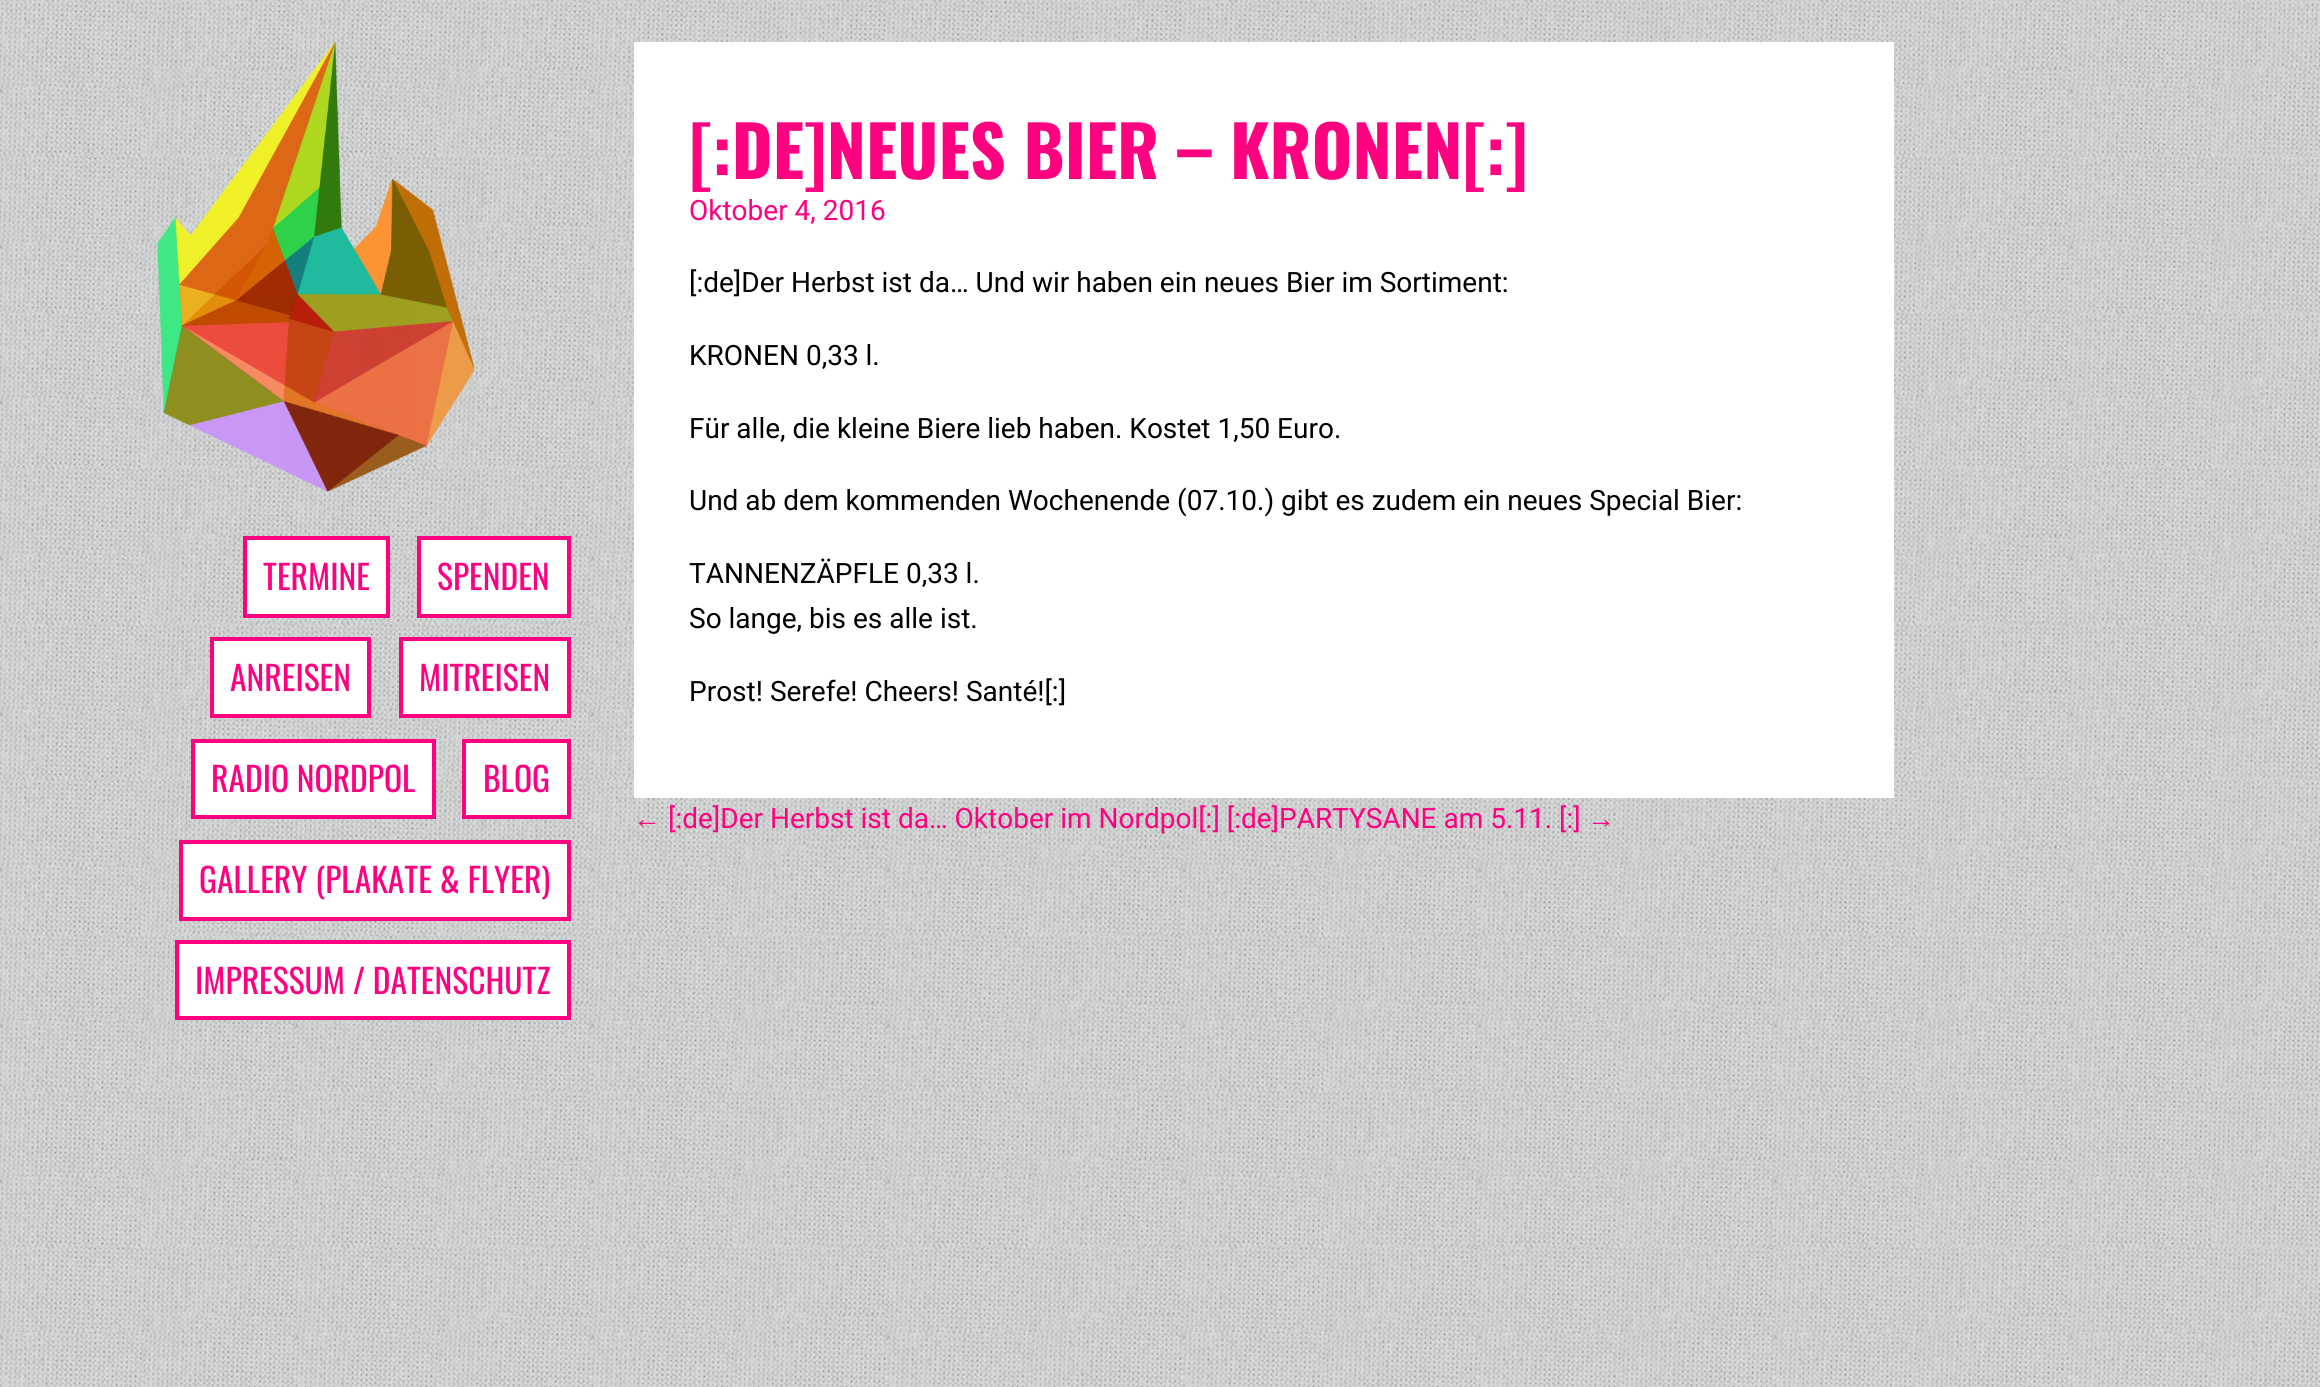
import math
import cairo


def use_color(cr, r, g, b):
  cr.set_source_rgb(r / 255, g / 255, b / 255)

def text(cr, x, y, s, family, size, color, bold=False, italic=False):
  cr.select_font_face(family, cairo.FONT_SLANT_ITALIC if italic else cairo.FONT_SLANT_NORMAL, cairo.FONT_WEIGHT_BOLD if bold else cairo.FONT_WEIGHT_NORMAL)
  cr.set_font_size(size)
  use_color(cr, *color)
  cr.move_to(x, y)
  cr.show_text(s)

def box(cr, x, y, w, h, *color):
  use_color(cr, *color)
  cr.rectangle(x, y, w, h)
  cr.fill()

def picture(cr, path, x, y, w, h):
  cr.save()
  cr.set_source_surface(cairo.ImageSurface.create_from_png(path), x, y)
  cr.rectangle(x, y, w, h)
  cr.fill()
  cr.restore()

def draw(cr):
  use_color(cr, 255, 255, 255)
  cr.paint()
  picture(cr, "img_01.png", 0, 0, 2320, 1387)
  picture(cr, "img_02.png", 157, 42, 318, 450)
  use_color(cr, 255, 255, 255)
  cr.rectangle(245, 538, 143, 78)
  cr.fill_preserve()
  use_color(cr, 255, 0, 128)
  cr.set_line_width(4)
  cr.stroke()
  use_color(cr, 255, 255, 255)
  cr.rectangle(419, 538, 150, 78)
  cr.fill_preserve()
  use_color(cr, 255, 0, 128)
  cr.stroke()
  use_color(cr, 255, 255, 255)
  cr.rectangle(212, 639, 157, 77)
  cr.fill_preserve()
  use_color(cr, 255, 0, 128)
  cr.stroke()
  use_color(cr, 255, 255, 255)
  cr.rectangle(401, 639, 168, 77)
  cr.fill_preserve()
  use_color(cr, 255, 0, 128)
  cr.stroke()
  use_color(cr, 255, 255, 255)
  cr.rectangle(193, 741, 241, 76)
  cr.fill_preserve()
  use_color(cr, 255, 0, 128)
  cr.stroke()
  use_color(cr, 255, 255, 255)
  cr.rectangle(464, 741, 105, 76)
  cr.fill_preserve()
  use_color(cr, 255, 0, 128)
  cr.stroke()
  use_color(cr, 255, 255, 255)
  cr.rectangle(181, 842, 388, 77)
  cr.fill_preserve()
  use_color(cr, 255, 0, 128)
  cr.stroke()
  use_color(cr, 255, 255, 255)
  cr.rectangle(177, 942, 392, 76)
  cr.fill_preserve()
  use_color(cr, 255, 0, 128)
  cr.stroke()
  box(cr, 634, 42, 1260, 756, 255, 255, 255)
  text(cr, 263, 590, "TERMINE", "Oswald", 33.6, (255, 0, 128))
  text(cr, 437, 590, "SPENDEN", "Oswald", 33.6, (255, 0, 128))
  text(cr, 230, 691, "ANREISEN", "Oswald", 33.6, (255, 0, 128))
  text(cr, 419, 691, "MITREISEN", "Oswald", 33.6, (255, 0, 128))
  text(cr, 211, 792, "RADIO NORDPOL", "Oswald", 33.6, (255, 0, 128))
  text(cr, 483, 792, "BLOG", "Oswald", 33.6, (255, 0, 128))
  text(cr, 199, 893, "GALLERY (PLAKATE & FLYER)", "Oswald", 33.6, (255, 0, 128))
  text(cr, 195, 994, "IMPRESSUM / DATENSCHUTZ", "Oswald", 33.6, (255, 0, 128))
  text(cr, 689, 179, "[:DE]NEUES BIER – KRONEN[:]", "Oswald", 70, (255, 0, 128), bold=True)
  text(cr, 689, 220, "Oktober 4, 2016", "Roboto", 28, (255, 0, 128))
  text(cr, 689, 292, "[:de]Der Herbst ist da… Und wir haben ein neues Bier im Sortiment:", "Roboto", 28, (0, 0, 0))
  text(cr, 689, 365, "KRONEN 0,33 l.", "Roboto", 28, (0, 0, 0))
  text(cr, 689, 438, "Für alle, die kleine Biere lieb haben. Kostet 1,50 Euro.", "Roboto", 28, (0, 0, 0))
  text(cr, 689, 510, "Und ab dem kommenden Wochenende (07.10.) gibt es zudem ein neues Special Bier:", "Roboto", 28, (0, 0, 0))
  text(cr, 689, 583, "TANNENZÄPFLE 0,33 l.", "Roboto", 28, (0, 0, 0))
  text(cr, 689, 628, "So lange, bis es alle ist.", "Roboto", 28, (0, 0, 0))
  text(cr, 689, 701, "Prost! Serefe! Cheers! Santé![:]", "Roboto", 28, (0, 0, 0))
  text(cr, 633, 828, "←", "Liberation Sans", 28, (255, 0, 128))
  text(cr, 668, 828, "[:de]Der Herbst ist da… Oktober im Nordpol[:] [:de]PARTYSANE am 5.11. [:]", "Roboto", 28, (255, 0, 128))
  text(cr, 1587, 828, "→", "Liberation Sans", 28, (255, 0, 128))


surface = cairo.ImageSurface(cairo.FORMAT_RGB24, 2320, 1387)
cr = cairo.Context(surface)
options = cairo.FontOptions()
options.set_hint_metrics(cairo.HINT_METRICS_OFF)
options.set_hint_style(cairo.HINT_STYLE_NONE)
cr.set_font_options(options)
cr.set_miter_limit(4)
draw(cr)
surface.write_to_png("out.png")
